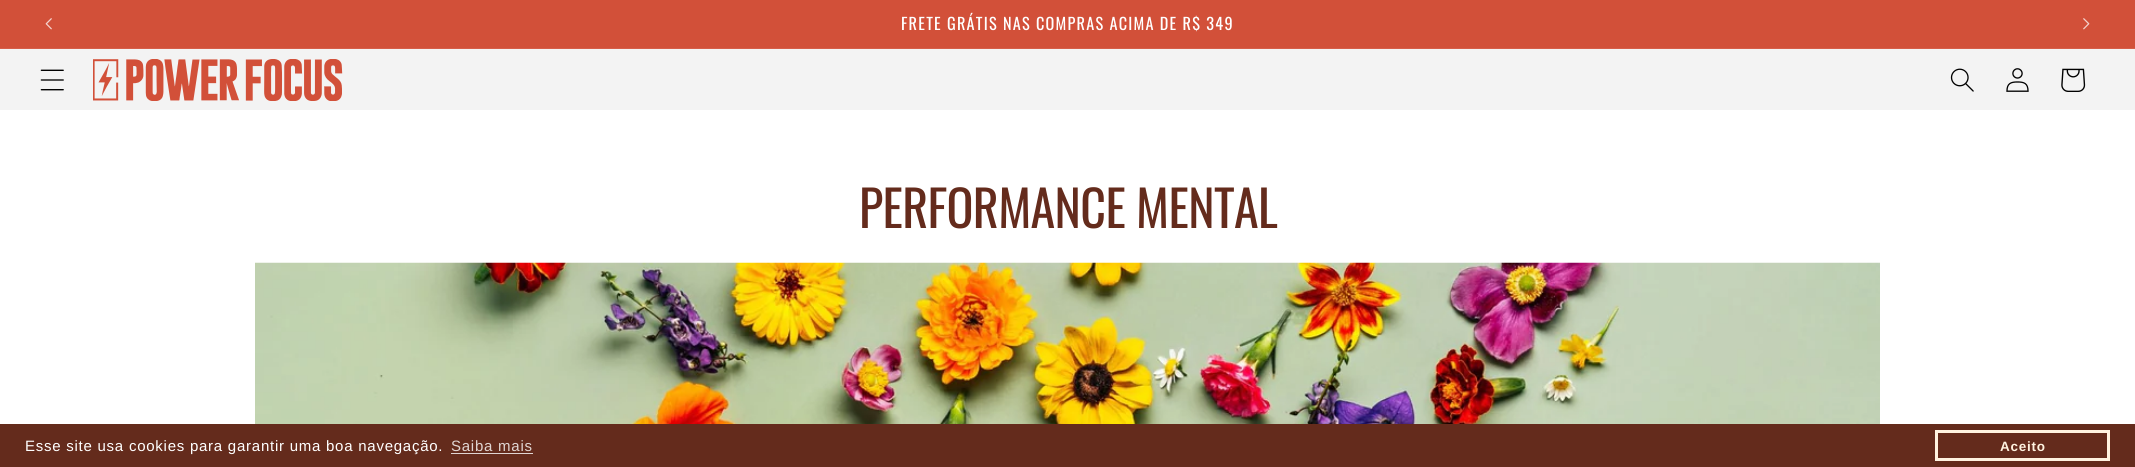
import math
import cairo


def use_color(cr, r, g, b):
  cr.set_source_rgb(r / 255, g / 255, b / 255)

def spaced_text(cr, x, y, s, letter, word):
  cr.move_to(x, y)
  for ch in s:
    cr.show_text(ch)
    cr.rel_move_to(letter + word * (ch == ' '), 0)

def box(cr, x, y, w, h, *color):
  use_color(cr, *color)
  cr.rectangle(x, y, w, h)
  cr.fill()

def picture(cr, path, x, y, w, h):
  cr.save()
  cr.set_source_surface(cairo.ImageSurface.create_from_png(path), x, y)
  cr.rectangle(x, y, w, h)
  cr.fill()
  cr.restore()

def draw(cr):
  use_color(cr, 255, 255, 255)
  cr.paint()
  box(cr, 0, 0, 2135, 48, 210, 80, 57)
  box(cr, 0, 48, 2135, 1, 214, 94, 73)
  picture(cr, "img_01.png", 45, 18, 7, 12)
  picture(cr, "img_02.png", 2083, 18, 7, 12)
  box(cr, 0, 49, 2135, 61, 243, 243, 243)
  picture(cr, "img_03.png", 40, 69, 24, 22)
  picture(cr, "img_04.png", 93, 59, 250, 42)
  picture(cr, "img_05.png", 1950, 68, 24, 24)
  picture(cr, "img_06.png", 2006, 68, 23, 24)
  picture(cr, "img_07.png", 2061, 68, 25, 24)
  picture(cr, "img_08.png", 255, 262, 1625, 162)
  box(cr, 0, 424, 2135, 43, 100, 43, 28)
  box(cr, 451, 453, 82, 1, 224, 213, 210)
  cr.rectangle(1936.5, 431.5, 172, 28)
  use_color(cr, 255, 243, 224)
  cr.set_line_width(3)
  cr.stroke()
  cr.select_font_face("Oswald")
  cr.set_font_size(16.25)
  use_color(cr, 255, 255, 255)
  spaced_text(cr, 901, 30, "FRETE GRÁTIS NAS COMPRAS ACIMA DE R$ 349", 1.25, 0)
  cr.set_font_size(50)
  use_color(cr, 100, 43, 28)
  spaced_text(cr, 859, 228, "PERFORMANCE MENTAL", -0.6, 0)
  cr.select_font_face("Liberation Sans")
  cr.set_font_size(15)
  use_color(cr, 255, 255, 255)
  spaced_text(cr, 25, 451, "Esse site usa cookies para garantir uma boa navegação.", 0.75, 0)
  use_color(cr, 224, 213, 210)
  spaced_text(cr, 451, 451, "Saiba mais", 0.75, 0)
  cr.select_font_face("Liberation Sans", cairo.FONT_SLANT_NORMAL, cairo.FONT_WEIGHT_BOLD)
  cr.set_font_size(13.5)
  use_color(cr, 255, 243, 224)
  spaced_text(cr, 2000, 451, "Aceito", 0.75, 0)


surface = cairo.ImageSurface(cairo.FORMAT_RGB24, 2135, 467)
cr = cairo.Context(surface)
options = cairo.FontOptions()
options.set_hint_metrics(cairo.HINT_METRICS_OFF)
options.set_hint_style(cairo.HINT_STYLE_NONE)
cr.set_font_options(options)
cr.set_miter_limit(4)
draw(cr)
surface.write_to_png("out.png")
